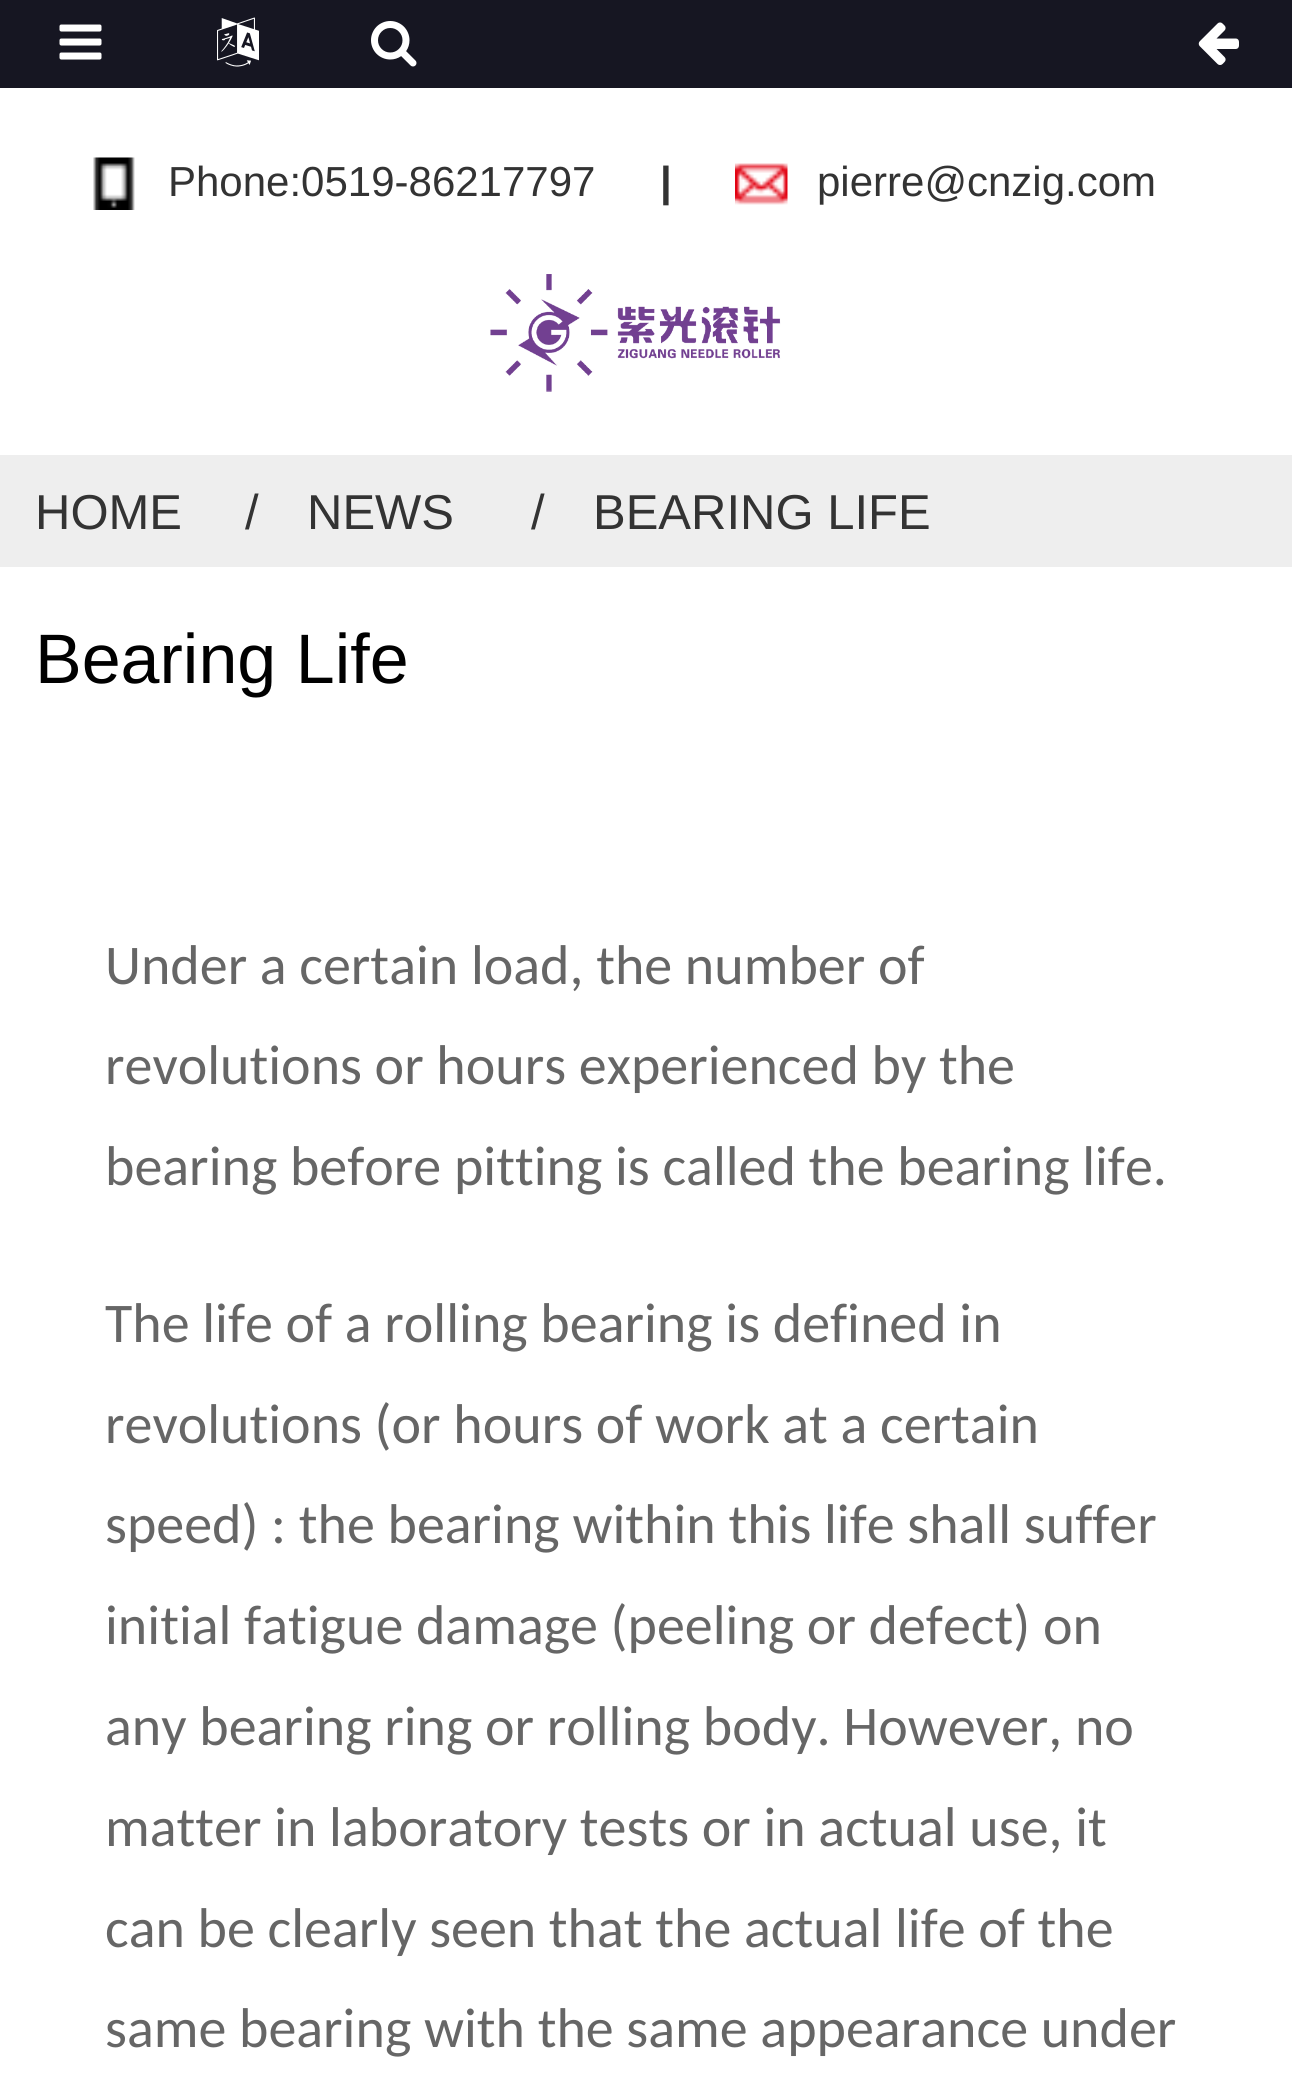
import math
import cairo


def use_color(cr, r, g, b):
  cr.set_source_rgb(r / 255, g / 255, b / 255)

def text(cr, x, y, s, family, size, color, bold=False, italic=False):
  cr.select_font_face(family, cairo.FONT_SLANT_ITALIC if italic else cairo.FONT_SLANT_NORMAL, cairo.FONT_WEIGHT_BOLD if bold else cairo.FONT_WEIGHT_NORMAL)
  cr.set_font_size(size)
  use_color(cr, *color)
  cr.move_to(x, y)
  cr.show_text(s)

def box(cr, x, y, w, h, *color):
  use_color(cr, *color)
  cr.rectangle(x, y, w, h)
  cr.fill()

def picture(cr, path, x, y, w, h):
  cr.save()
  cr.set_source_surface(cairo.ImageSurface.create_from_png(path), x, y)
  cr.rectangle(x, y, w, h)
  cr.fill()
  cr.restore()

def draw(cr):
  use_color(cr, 255, 255, 255)
  cr.paint()
  box(cr, 0, 0, 1292, 88, 22, 22, 34)
  picture(cr, "img_01.png", 59, 24, 43, 36)
  picture(cr, "img_02.png", 217, 17, 42, 50)
  picture(cr, "img_03.png", 371, 21, 46, 46)
  picture(cr, "img_04.png", 1198, 22, 41, 43)
  picture(cr, "img_05.png", 93, 157, 42, 53)
  picture(cr, "img_06.png", 735, 163, 53, 42)
  picture(cr, "img_07.png", 490, 274, 291, 118)
  box(cr, 0, 455, 1292, 112, 238, 238, 238)
  text(cr, 168, 196, "Phone:0519-86217797", "Liberation Sans", 42, (51, 51, 51))
  text(cr, 660, 196, "|", "Liberation Sans", 42, (51, 51, 51), bold=True)
  text(cr, 817, 196, "pierre@cnzig.com", "Liberation Sans", 42, (51, 51, 51))
  text(cr, 35, 529, "HOME", "Liberation Sans", 49, (51, 51, 51))
  text(cr, 245, 529, "/", "Liberation Sans", 49, (51, 51, 51))
  text(cr, 307, 529, "NEWS", "Liberation Sans", 49, (51, 51, 51))
  text(cr, 531, 529, "/", "Liberation Sans", 49, (51, 51, 51))
  text(cr, 593, 529, "BEARING LIFE", "Liberation Sans", 49, (51, 51, 51))
  text(cr, 35, 683, "Bearing Life", "Liberation Sans", 70, (0, 0, 0))
  text(cr, 105, 984, "Under a certain load, the number of", "Carlito", 56, (102, 102, 102))
  text(cr, 105, 1084, "revolutions or hours experienced by the", "Carlito", 56, (102, 102, 102))
  text(cr, 105, 1185, "bearing before pitting is called the bearing life.", "Carlito", 56, (102, 102, 102))
  text(cr, 105, 1342, "The life of a rolling bearing is defined in", "Carlito", 56, (102, 102, 102))
  text(cr, 105, 1443, "revolutions (or hours of work at a certain", "Carlito", 56, (102, 102, 102))
  text(cr, 105, 1543, "speed) : the bearing within this life shall suffer", "Carlito", 56, (102, 102, 102))
  text(cr, 105, 1644, "initial fatigue damage (peeling or defect) on", "Carlito", 56, (102, 102, 102))
  text(cr, 105, 1745, "any bearing ring or rolling body. However, no", "Carlito", 56, (102, 102, 102))
  text(cr, 105, 1846, "matter in laboratory tests or in actual use, it", "Carlito", 56, (102, 102, 102))
  text(cr, 105, 1947, "can be clearly seen that the actual life of the", "Carlito", 56, (102, 102, 102))
  text(cr, 105, 2047, "same bearing with the same appearance under", "Carlito", 56, (102, 102, 102))


surface = cairo.ImageSurface(cairo.FORMAT_RGB24, 1292, 2098)
cr = cairo.Context(surface)
options = cairo.FontOptions()
options.set_hint_metrics(cairo.HINT_METRICS_OFF)
options.set_hint_style(cairo.HINT_STYLE_NONE)
cr.set_font_options(options)
cr.set_miter_limit(4)
draw(cr)
surface.write_to_png("out.png")
